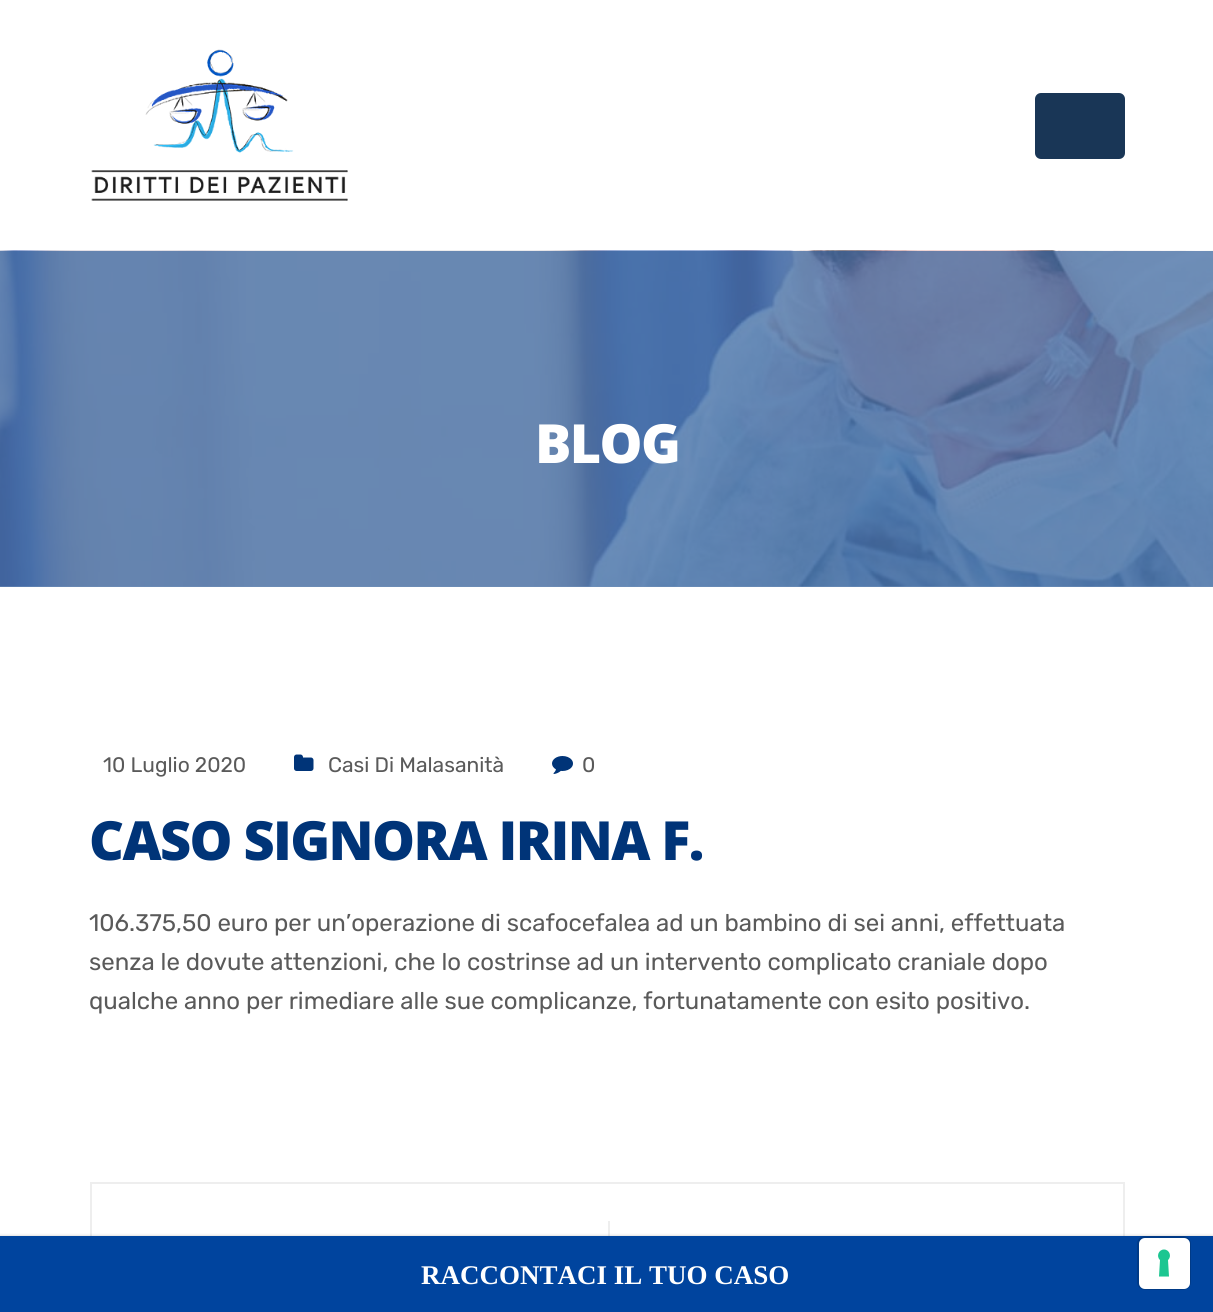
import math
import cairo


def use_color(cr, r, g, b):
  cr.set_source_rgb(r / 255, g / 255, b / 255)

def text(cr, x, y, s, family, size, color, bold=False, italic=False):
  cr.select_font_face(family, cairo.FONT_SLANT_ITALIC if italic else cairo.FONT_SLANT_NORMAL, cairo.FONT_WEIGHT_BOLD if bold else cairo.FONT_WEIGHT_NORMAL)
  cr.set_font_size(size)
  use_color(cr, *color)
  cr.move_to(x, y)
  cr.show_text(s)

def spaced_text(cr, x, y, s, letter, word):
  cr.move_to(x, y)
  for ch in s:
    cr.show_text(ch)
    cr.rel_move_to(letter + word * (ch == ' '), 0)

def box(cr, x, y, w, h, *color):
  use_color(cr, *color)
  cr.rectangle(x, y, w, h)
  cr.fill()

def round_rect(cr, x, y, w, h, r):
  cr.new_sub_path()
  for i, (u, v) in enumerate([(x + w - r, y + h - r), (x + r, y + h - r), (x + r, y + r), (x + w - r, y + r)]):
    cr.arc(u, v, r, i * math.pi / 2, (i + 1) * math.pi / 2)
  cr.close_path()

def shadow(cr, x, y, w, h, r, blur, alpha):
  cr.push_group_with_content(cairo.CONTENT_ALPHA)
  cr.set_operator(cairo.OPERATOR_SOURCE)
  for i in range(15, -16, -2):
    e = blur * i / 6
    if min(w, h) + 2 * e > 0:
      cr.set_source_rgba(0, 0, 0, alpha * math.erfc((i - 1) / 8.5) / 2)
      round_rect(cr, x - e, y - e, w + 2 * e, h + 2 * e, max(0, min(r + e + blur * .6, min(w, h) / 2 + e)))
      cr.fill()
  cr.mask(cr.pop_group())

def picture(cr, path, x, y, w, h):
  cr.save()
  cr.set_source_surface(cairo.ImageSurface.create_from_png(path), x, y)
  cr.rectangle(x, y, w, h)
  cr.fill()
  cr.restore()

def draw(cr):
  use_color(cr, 255, 255, 255)
  cr.paint()
  box(cr, 0, 586, 1213, 1, 112, 144, 185)
  picture(cr, "img_01.png", 91, 49, 257, 152)
  use_color(cr, 25, 54, 86)
  round_rect(cr, 1035, 93, 90, 66, 6)
  cr.fill()
  picture(cr, "img_02.png", 0, 250, 1213, 337)
  picture(cr, "img_03.png", 294, 754, 20, 17)
  picture(cr, "img_04.png", 552, 756, 21, 18)
  cr.rectangle(91, 1183, 1033, 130)
  use_color(cr, 238, 238, 238)
  cr.stroke()
  box(cr, 608, 1221, 2, 15, 238, 238, 238)
  use_color(cr, 0, 0, 0)
  shadow(cr, -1, 1235, 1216, 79, 0, 1, 0.12)
  box(cr, 0, 1236, 1213, 76, 0, 68, 158)
  round_rect(cr, 1138, 1237, 52, 52, 7)
  use_color(cr, 0, 58, 134)
  cr.stroke()
  use_color(cr, 255, 255, 255)
  round_rect(cr, 1139, 1238, 51, 51, 6)
  cr.fill()
  use_color(cr, 28, 198, 145)
  cr.set_fill_rule(cairo.FILL_RULE_EVEN_ODD)
  cr.new_path()
  cr.move_to(1164, 1249.5)
  cr.curve_to(1169.5, 1249.5, 1172, 1256.5, 1168, 1260)
  cr.line_to(1169, 1276.5)
  cr.line_to(1159, 1276.5)
  cr.line_to(1160, 1260)
  cr.curve_to(1156, 1256.5, 1158.5, 1249.5, 1164, 1249.5)
  cr.close_path()
  cr.fill()
  cr.select_font_face("Open Sans ExtraBold")
  cr.set_font_size(54)
  use_color(cr, 255, 255, 255)
  spaced_text(cr, 535, 463, "BLOG", -1.6, 0)
  text(cr, 103, 772, "10 Luglio 2020", "Rubik", 21, (90, 90, 90))
  text(cr, 328, 772, "Casi Di Malasanità", "Rubik", 21, (90, 90, 90))
  text(cr, 582, 772, "0", "Rubik", 21, (90, 90, 90))
  cr.select_font_face("Open Sans ExtraBold")
  cr.set_font_size(54)
  use_color(cr, 0, 52, 120)
  spaced_text(cr, 89, 860, "CASO SIGNORA IRINA F.", -1.6, 0)
  text(cr, 89, 931, "106.375,50 euro per un’operazione di scafocefalea ad un bambino di sei anni, effettuata", "Rubik", 24, (90, 90, 90))
  text(cr, 89, 970, "senza le dovute attenzioni, che lo costrinse ad un intervento complicato craniale dopo", "Rubik", 24, (90, 90, 90))
  text(cr, 89, 1009, "qualche anno per rimediare alle sue complicanze, fortunatamente con esito positivo.", "Rubik", 24, (90, 90, 90))
  text(cr, 421, 1284, "RACCONTACI IL TUO CASO", "Liberation Serif", 27, (255, 255, 255), bold=True)


surface = cairo.ImageSurface(cairo.FORMAT_RGB24, 1213, 1312)
cr = cairo.Context(surface)
options = cairo.FontOptions()
options.set_hint_metrics(cairo.HINT_METRICS_OFF)
options.set_hint_style(cairo.HINT_STYLE_NONE)
cr.set_font_options(options)
cr.set_miter_limit(4)
draw(cr)
surface.write_to_png("out.png")
